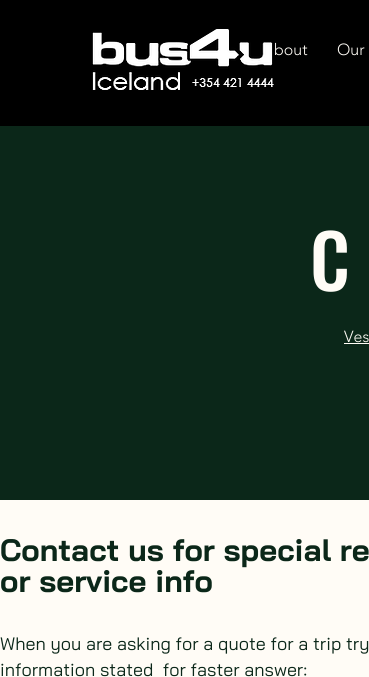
import math
import cairo


def use_color(cr, r, g, b):
  cr.set_source_rgb(r / 255, g / 255, b / 255)

def text(cr, x, y, s, family, size, color, bold=False, italic=False):
  cr.select_font_face(family, cairo.FONT_SLANT_ITALIC if italic else cairo.FONT_SLANT_NORMAL, cairo.FONT_WEIGHT_BOLD if bold else cairo.FONT_WEIGHT_NORMAL)
  cr.set_font_size(size)
  use_color(cr, *color)
  cr.move_to(x, y)
  cr.show_text(s)

def box(cr, x, y, w, h, *color):
  use_color(cr, *color)
  cr.rectangle(x, y, w, h)
  cr.fill()

def picture(cr, path, x, y, w, h):
  cr.save()
  cr.set_source_surface(cairo.ImageSurface.create_from_png(path), x, y)
  cr.rectangle(x, y, w, h)
  cr.fill()
  cr.restore()

def draw(cr):
  use_color(cr, 255, 252, 246)
  cr.paint()
  box(cr, 0, 0, 369, 126, 0, 0, 0)
  picture(cr, "img_01.png", 92, 29, 182, 61)
  box(cr, 0, 126, 369, 374, 11, 39, 25)
  box(cr, 344, 343, 25, 1, 255, 252, 246)
  text(cr, 274, 55, "bout", "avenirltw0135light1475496 Light", 16, (255, 252, 246))
  text(cr, 337, 55, "Our", "avenirltw0135light1475496 Light", 16, (255, 252, 246))
  text(cr, 310, 291, "C", "Oswald Medium", 74, (255, 252, 246))
  text(cr, 344, 342, "Ves", "avenirltw0135light1475496 Light", 16, (255, 252, 246))
  text(cr, 0, 561, "Contact us for special re", "Bai Jamjuree", 31, (11, 39, 25), bold=True)
  text(cr, 0, 592, "or service info", "Bai Jamjuree", 31, (11, 39, 25), bold=True)
  text(cr, 0, 650, "When you are asking for a quote for a trip try", "Bai Jamjuree", 18, (11, 39, 25))
  text(cr, 0, 676, "information stated  for faster answer:", "Bai Jamjuree", 18, (11, 39, 25))


surface = cairo.ImageSurface(cairo.FORMAT_RGB24, 369, 677)
cr = cairo.Context(surface)
options = cairo.FontOptions()
options.set_hint_metrics(cairo.HINT_METRICS_OFF)
options.set_hint_style(cairo.HINT_STYLE_NONE)
cr.set_font_options(options)
cr.set_miter_limit(4)
draw(cr)
surface.write_to_png("out.png")
